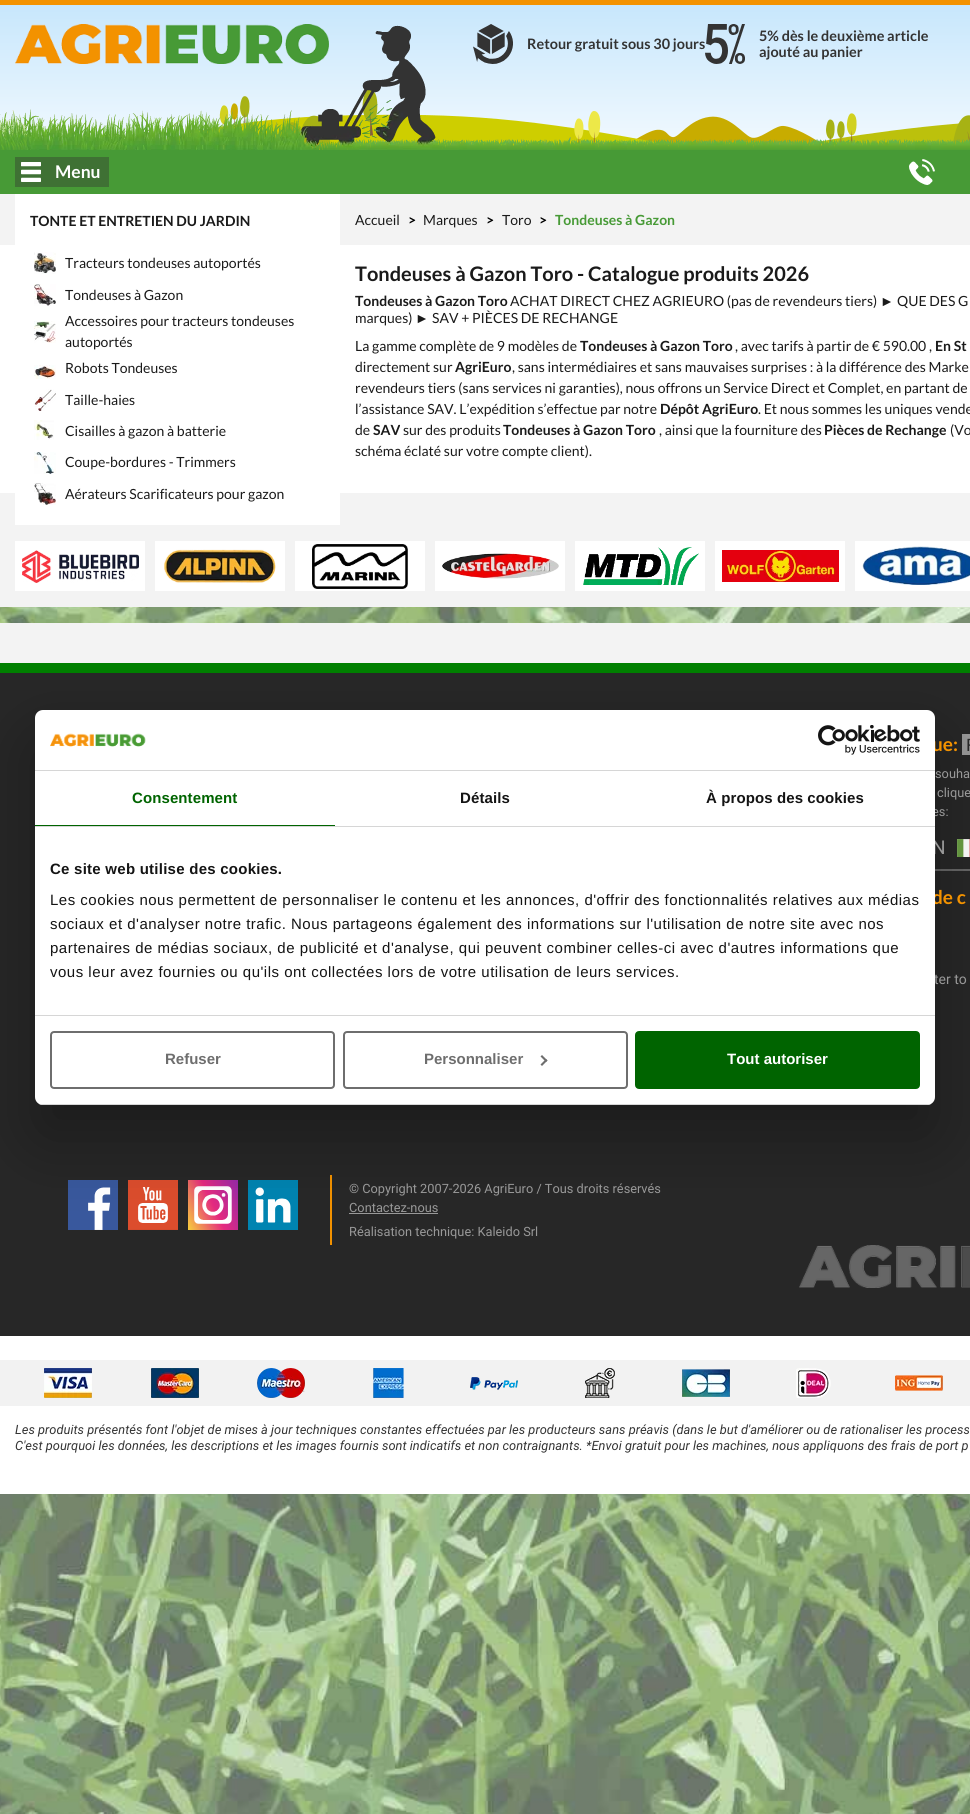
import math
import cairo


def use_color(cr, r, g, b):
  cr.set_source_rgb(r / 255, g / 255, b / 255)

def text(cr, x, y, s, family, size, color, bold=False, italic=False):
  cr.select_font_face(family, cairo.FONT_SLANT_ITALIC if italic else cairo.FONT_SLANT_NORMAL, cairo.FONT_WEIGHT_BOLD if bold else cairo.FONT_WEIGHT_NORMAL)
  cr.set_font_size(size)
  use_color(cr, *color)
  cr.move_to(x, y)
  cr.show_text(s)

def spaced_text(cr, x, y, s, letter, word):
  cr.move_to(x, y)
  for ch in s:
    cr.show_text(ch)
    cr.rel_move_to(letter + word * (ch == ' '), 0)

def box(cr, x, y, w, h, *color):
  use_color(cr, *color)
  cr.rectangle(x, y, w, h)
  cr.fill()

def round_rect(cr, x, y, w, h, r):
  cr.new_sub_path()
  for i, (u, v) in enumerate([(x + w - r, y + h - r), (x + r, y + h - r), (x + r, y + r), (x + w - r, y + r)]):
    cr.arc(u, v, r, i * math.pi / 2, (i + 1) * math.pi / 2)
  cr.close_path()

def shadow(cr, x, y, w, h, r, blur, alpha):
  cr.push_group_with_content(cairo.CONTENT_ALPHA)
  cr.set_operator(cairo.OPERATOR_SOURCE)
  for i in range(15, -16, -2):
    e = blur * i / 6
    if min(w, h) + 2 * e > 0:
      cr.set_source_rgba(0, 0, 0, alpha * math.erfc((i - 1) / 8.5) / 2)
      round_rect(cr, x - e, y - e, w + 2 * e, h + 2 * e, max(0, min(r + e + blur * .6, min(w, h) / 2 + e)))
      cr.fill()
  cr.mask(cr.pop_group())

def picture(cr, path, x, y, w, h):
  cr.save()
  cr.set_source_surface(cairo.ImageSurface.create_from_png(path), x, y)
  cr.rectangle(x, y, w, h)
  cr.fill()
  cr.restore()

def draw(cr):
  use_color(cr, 255, 255, 255)
  cr.paint()
  gradient = cairo.LinearGradient(600, 194, 600, 0)
  gradient.add_color_stop_rgba(0, 1, 1, 1, 1)
  gradient.add_color_stop_rgba(1, 0.776, 0.902, 0.988, 1)
  cr.set_source(gradient)
  cr.rectangle(0, 5, 970, 142)
  cr.fill()
  box(cr, 0, 0, 970, 5, 243, 146, 0)
  picture(cr, "img_03.png", 152, 90, 818, 60)
  picture(cr, "img_01.png", 0, 25, 970, 125)
  picture(cr, "img_02.png", 0, 110, 27, 40)
  picture(cr, "img_04.png", 15, 24, 314, 40)
  picture(cr, "img_05.png", 473, 24, 40, 40)
  picture(cr, "img_06.png", 705, 24, 40, 40)
  box(cr, 0, 150, 970, 44, 71, 154, 54)
  box(cr, 15, 157, 94, 30, 63, 113, 52)
  picture(cr, "img_07.png", 21, 162, 20, 20)
  picture(cr, "img_08.png", 909, 159, 26, 26)
  box(cr, 0, 194, 970, 413, 243, 243, 243)
  box(cr, 0, 245, 970, 248, 255, 255, 255)
  box(cr, 15, 194, 325, 331, 255, 255, 255)
  picture(cr, "img_09.png", 34, 252, 22, 22)
  picture(cr, "img_10.png", 34, 284, 22, 22)
  picture(cr, "img_11.png", 34, 321, 22, 22)
  picture(cr, "img_12.png", 34, 365, 22, 14)
  picture(cr, "img_13.png", 34, 389, 22, 22)
  picture(cr, "img_14.png", 34, 420, 20, 20)
  picture(cr, "img_15.png", 34, 452, 22, 22)
  picture(cr, "img_16.png", 34, 483, 22, 22)
  box(cr, 15, 541, 130, 50, 255, 255, 255)
  picture(cr, "img_17.png", 22, 550, 117, 33)
  box(cr, 155, 541, 130, 50, 255, 255, 255)
  picture(cr, "img_18.png", 164, 549, 112, 34)
  box(cr, 295, 541, 130, 50, 255, 255, 255)
  picture(cr, "img_19.png", 312, 544, 96, 45)
  box(cr, 435, 541, 130, 50, 255, 255, 255)
  picture(cr, "img_20.png", 442, 553, 117, 26)
  box(cr, 575, 541, 130, 50, 255, 255, 255)
  picture(cr, "img_21.png", 583, 547, 116, 38)
  box(cr, 715, 541, 130, 50, 255, 255, 255)
  picture(cr, "img_22.png", 722, 550, 117, 32)
  box(cr, 855, 541, 115, 50, 255, 255, 255)
  picture(cr, "img_23.png", 862, 546, 108, 39)
  picture(cr, "img_24.png", 0, 607, 970, 1207)
  box(cr, 0, 623, 970, 40, 243, 243, 243)
  box(cr, 0, 1336, 970, 158, 255, 255, 255)
  box(cr, 0, 663, 970, 10, 0, 128, 0)
  box(cr, 0, 673, 970, 663, 39, 39, 39)
  box(cr, 962, 734, 8, 21, 153, 153, 153)
  picture(cr, "img_25.png", 957, 839, 13, 18)
  box(cr, 935, 869, 35, 2, 102, 102, 102)
  picture(cr, "img_26.png", 68, 1180, 50, 50)
  picture(cr, "img_27.png", 128, 1180, 50, 50)
  gradient = cairo.LinearGradient(243, 1191, 183, 1219)
  gradient.add_color_stop_rgba(0, 0.592, 0.165, 0.667, 1)
  gradient.add_color_stop_rgba(0.5, 0.898, 0.165, 0.498, 1)
  gradient.add_color_stop_rgba(1, 0.969, 0.812, 0.235, 1)
  cr.set_source(gradient)
  cr.rectangle(188, 1180, 50, 50)
  cr.fill()
  picture(cr, "img_28.png", 194, 1186, 38, 38)
  picture(cr, "img_29.png", 248, 1180, 50, 50)
  box(cr, 330, 1175, 2, 70, 243, 146, 0)
  box(cr, 349, 1213, 89, 1, 153, 153, 153)
  picture(cr, "img_30.png", 799, 1245, 171, 43)
  box(cr, 0, 1360, 970, 46, 242, 242, 242)
  picture(cr, "img_31.png", 44, 1368, 48, 30)
  picture(cr, "img_32.png", 151, 1368, 48, 30)
  picture(cr, "img_33.png", 257, 1368, 48, 30)
  picture(cr, "img_34.png", 373, 1368, 31, 30)
  picture(cr, "img_35.png", 470, 1377, 48, 13)
  picture(cr, "img_36.png", 585, 1368, 30, 30)
  picture(cr, "img_37.png", 682, 1369, 48, 28)
  picture(cr, "img_38.png", 796, 1368, 35, 30)
  picture(cr, "img_39.png", 895, 1375, 48, 16)
  use_color(cr, 0, 0, 0)
  shadow(cr, 35, 742, 900, 395, 8, 34, 0.3)
  text(cr, 527, 49, "Retour gratuit sous 30 jours", "Lato", 14.4, (51, 51, 51), bold=True)
  text(cr, 759, 41, "5% dès le deuxième article", "Lato", 14.4, (51, 51, 51), bold=True)
  text(cr, 759, 57, "ajouté au panier", "Lato", 14.4, (51, 51, 51), bold=True)
  text(cr, 55, 178, "Menu", "Lato", 17.5, (255, 255, 255), bold=True)
  text(cr, 30, 226, "TONTE ET ENTRETIEN DU JARDIN", "Lato", 14, (26, 26, 26), bold=True)
  text(cr, 65, 268, "Tracteurs tondeuses autoportés", "Lato", 14, (26, 26, 26))
  text(cr, 65, 300, "Tondeuses à Gazon", "Lato", 14, (26, 26, 26))
  text(cr, 65, 326, "Accessoires pour tracteurs tondeuses", "Lato", 14, (26, 26, 26))
  text(cr, 65, 347, "autoportés", "Lato", 14, (26, 26, 26))
  text(cr, 65, 373, "Robots Tondeuses", "Lato", 14, (26, 26, 26))
  text(cr, 65, 405, "Taille-haies", "Lato", 14, (26, 26, 26))
  text(cr, 65, 436, "Cisailles à gazon à batterie", "Lato", 14, (26, 26, 26))
  text(cr, 65, 467, "Coupe-bordures - Trimmers", "Lato", 14, (26, 26, 26))
  text(cr, 65, 499, "Aérateurs Scarificateurs pour gazon", "Lato", 14, (26, 26, 26))
  text(cr, 355, 225, "Accueil", "Lato", 14, (26, 26, 26))
  text(cr, 408, 225, ">", "Lato", 14, (0, 0, 0), bold=True)
  text(cr, 423, 225, "Marques", "Lato", 14, (26, 26, 26))
  text(cr, 486, 225, ">", "Lato", 14, (0, 0, 0), bold=True)
  text(cr, 502, 225, "Toro", "Lato", 14, (26, 26, 26))
  text(cr, 539, 225, ">", "Lato", 14, (0, 0, 0), bold=True)
  text(cr, 555, 225, "Tondeuses à Gazon", "Lato", 14, (71, 154, 54), bold=True)
  text(cr, 355, 281, "Tondeuses à Gazon Toro - Catalogue produits 2026", "Lato", 20, (26, 26, 26), bold=True)
  text(cr, 355, 306, "Tondeuses à Gazon Toro", "Lato", 14, (26, 26, 26), bold=True)
  text(cr, 510, 306, "ACHAT DIRECT CHEZ AGRIEURO (pas de revendeurs tiers)", "Lato", 14, (26, 26, 26))
  text(cr, 880, 306, "►", "Liberation Sans", 14, (26, 26, 26))
  text(cr, 897, 306, "QUE DES G", "Lato", 14, (26, 26, 26))
  text(cr, 355, 323, "marques)", "Lato", 14, (26, 26, 26))
  text(cr, 415, 323, "►", "Liberation Sans", 14, (26, 26, 26))
  text(cr, 432, 323, "SAV + PIÈCES DE RECHANGE", "Lato", 14, (26, 26, 26))
  text(cr, 355, 351, "La gamme complète de 9 modèles de", "Lato", 14, (26, 26, 26))
  text(cr, 580, 351, "Tondeuses à Gazon Toro", "Lato", 14, (26, 26, 26), bold=True)
  text(cr, 735, 351, ", avec tarifs à partir de € 590.00 ,", "Lato", 14, (26, 26, 26))
  text(cr, 935, 351, "En St", "Lato", 14, (26, 26, 26), bold=True)
  text(cr, 355, 372, "directement sur", "Lato", 14, (26, 26, 26))
  text(cr, 455, 372, "AgriEuro", "Lato", 14, (26, 26, 26), bold=True)
  text(cr, 512, 372, ", sans intermédiaires et sans mauvaises surprises : à la différence des Marke", "Lato", 14, (26, 26, 26))
  text(cr, 355, 393, "revendeurs tiers (sans services ni garanties), nous offrons un Service Direct et Complet, en partant de", "Lato", 14, (26, 26, 26))
  text(cr, 355, 414, "l’assistance SAV. L’expédition s’effectue par notre", "Lato", 14, (26, 26, 26))
  text(cr, 660, 414, "Dépôt AgriEuro", "Lato", 14, (26, 26, 26), bold=True)
  text(cr, 758, 414, ". Et nous sommes les uniques vende", "Lato", 14, (26, 26, 26))
  text(cr, 355, 435, "de", "Lato", 14, (26, 26, 26))
  text(cr, 373, 435, "SAV", "Lato", 14, (26, 26, 26), bold=True)
  text(cr, 403, 435, "sur des produits", "Lato", 14, (26, 26, 26))
  text(cr, 503, 435, "Tondeuses à Gazon Toro", "Lato", 14, (26, 26, 26), bold=True)
  text(cr, 659, 435, ", ainsi que la fourniture des", "Lato", 14, (26, 26, 26))
  text(cr, 824, 435, "Pièces de Rechange", "Lato", 14, (26, 26, 26), bold=True)
  text(cr, 950, 435, "(Vo", "Lato", 14, (26, 26, 26))
  text(cr, 355, 456, "schéma éclaté sur votre compte client).", "Lato", 14, (26, 26, 26))
  text(cr, 932, 751, "ue:", "Lato", 19, (243, 146, 0), bold=True)
  text(cr, 966, 751, "F", "Lato", 17, (39, 39, 39))
  text(cr, 935, 778, "souha", "Roboto", 12.8, (153, 153, 153))
  text(cr, 937, 797, "clique", "Roboto", 12.8, (153, 153, 153))
  text(cr, 932, 816, "es:", "Roboto", 12.8, (153, 153, 153))
  text(cr, 932, 854, "N", "Roboto", 19, (153, 153, 153))
  text(cr, 932, 904, "de c", "Lato", 19, (243, 146, 0), bold=True)
  text(cr, 934, 984, "ter to", "Roboto", 14, (153, 153, 153))
  text(cr, 349, 1193, "© Copyright 2007-2026 AgriEuro / Tous droits réservés", "Roboto", 12.8, (153, 153, 153))
  text(cr, 349, 1212, "Contactez-nous", "Roboto", 12.8, (153, 153, 153))
  text(cr, 349, 1236, "Réalisation technique: Kaleido Srl", "Roboto", 12.8, (153, 153, 153))
  text(cr, 15, 1434, "Les produits présentés font l'objet de mises à jour techniques constantes effectuées par les producteurs sans préavis (dans le but d'améliorer ou de rationaliser les process", "Roboto", 12.8, (51, 51, 51), italic=True)
  text(cr, 15, 1450, "C'est pourquoi les données, les descriptions et les images fournis sont indicatifs et non contraignants. *Envoi gratuit pour les machines, nous appliquons des frais de port p", "Roboto", 12.8, (51, 51, 51), italic=True)
  use_color(cr, 255, 255, 255)
  round_rect(cr, 35, 710, 900, 395, 8)
  cr.fill()
  box(cr, 35, 770, 900, 1, 214, 214, 214)
  picture(cr, "img_40.png", 50, 733, 96, 14)
  picture(cr, "img_41.png", 818, 725, 102, 30)
  box(cr, 35, 826, 900, 1, 214, 214, 214)
  box(cr, 35, 825, 300, 1, 0, 100, 0)
  cr.select_font_face("Liberation Sans", cairo.FONT_SLANT_NORMAL, cairo.FONT_WEIGHT_BOLD)
  cr.set_font_size(15)
  spaced_text(cr, 132, 803, "Consentement", 0.1, 0)
  use_color(cr, 20, 20, 20)
  spaced_text(cr, 460, 803, "Détails", 0.1, 0)
  spaced_text(cr, 706, 803, "À propos des cookies", 0.1, 0)
  box(cr, 35, 1015, 900, 1, 214, 214, 214)
  use_color(cr, 20, 20, 20)
  spaced_text(cr, 50, 874, "Ce site web utilise des cookies.", 0.25, 0)
  cr.select_font_face("Liberation Sans")
  spaced_text(cr, 50, 905, "Les cookies nous permettent de personnaliser le contenu et les annonces, d'offrir des fonctionnalités relatives aux médias", 0.5, 0)
  spaced_text(cr, 50, 929, "sociaux et d'analyser notre trafic. Nous partageons également des informations sur l'utilisation de notre site avec nos", 0.5, 0)
  spaced_text(cr, 50, 953, "partenaires de médias sociaux, de publicité et d'analyse, qui peuvent combiner celles-ci avec d'autres informations que", 0.5, 0)
  spaced_text(cr, 50, 977, "vous leur avez fournies ou qu'ils ont collectées lors de votre utilisation de leurs services.", 0.5, 0)
  cr.save()
  round_rect(cr, 35, 710, 900, 395, 8)
  cr.clip()
  box(cr, 35, 1104, 900, 1, 214, 214, 214)
  cr.restore()
  round_rect(cr, 51, 1032, 283, 56, 3)
  use_color(cr, 110, 110, 110)
  cr.stroke()
  text(cr, 165, 1064, "Refuser", "Liberation Sans", 15, (110, 110, 110), bold=True)
  round_rect(cr, 344, 1032, 283, 56, 3)
  cr.stroke()
  text(cr, 424, 1064, "Personnaliser", "Liberation Sans", 15, (110, 110, 110), bold=True)
  cr.new_path()
  cr.move_to(542, 1055)
  cr.line_to(547.5, 1060.5)
  cr.line_to(546, 1062)
  cr.line_to(540.5, 1056.5)
  cr.close_path()
  cr.fill()
  cr.new_path()
  cr.move_to(546, 1059)
  cr.line_to(547.5, 1060.5)
  cr.line_to(542, 1066)
  cr.line_to(540.5, 1064.5)
  cr.close_path()
  cr.fill()
  use_color(cr, 0, 100, 0)
  round_rect(cr, 636, 1032, 283, 56, 3)
  cr.fill_preserve()
  cr.stroke()
  text(cr, 727, 1064, "Tout autoriser", "Liberation Sans", 15, (255, 255, 255), bold=True)


surface = cairo.ImageSurface(cairo.FORMAT_RGB24, 970, 1814)
cr = cairo.Context(surface)
options = cairo.FontOptions()
options.set_hint_metrics(cairo.HINT_METRICS_OFF)
options.set_hint_style(cairo.HINT_STYLE_NONE)
cr.set_font_options(options)
cr.set_miter_limit(4)
draw(cr)
surface.write_to_png("out.png")
